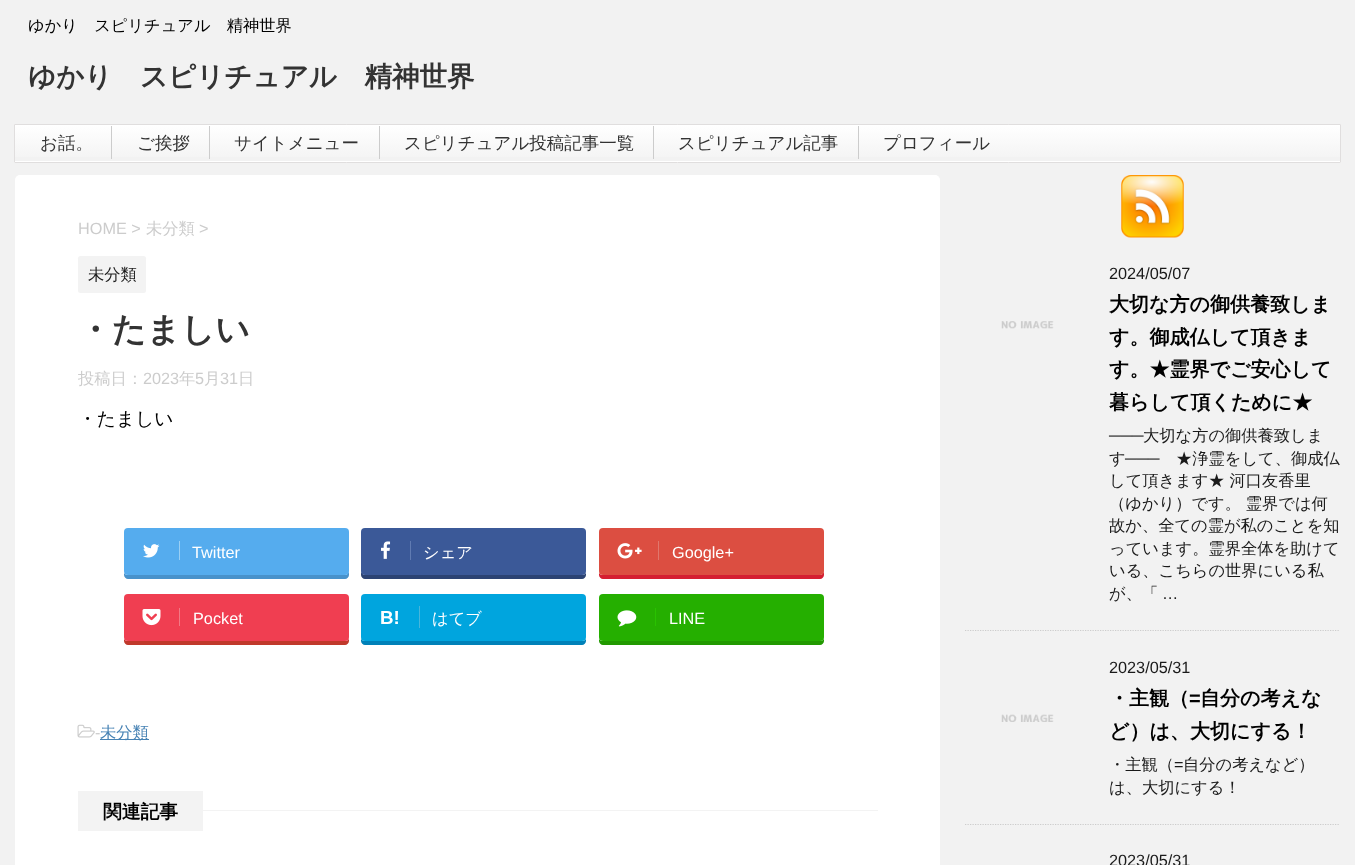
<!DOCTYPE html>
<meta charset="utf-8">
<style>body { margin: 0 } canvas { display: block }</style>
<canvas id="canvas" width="1355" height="865"></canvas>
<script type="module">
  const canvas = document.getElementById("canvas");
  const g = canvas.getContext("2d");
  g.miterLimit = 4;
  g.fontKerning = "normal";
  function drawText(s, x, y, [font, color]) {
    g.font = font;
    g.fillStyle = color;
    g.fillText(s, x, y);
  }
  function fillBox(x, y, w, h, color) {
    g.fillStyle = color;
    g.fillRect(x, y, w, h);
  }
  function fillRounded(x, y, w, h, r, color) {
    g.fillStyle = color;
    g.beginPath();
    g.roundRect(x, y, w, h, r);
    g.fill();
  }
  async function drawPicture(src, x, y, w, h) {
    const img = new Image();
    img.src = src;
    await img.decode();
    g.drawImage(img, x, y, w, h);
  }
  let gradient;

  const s1 = ["500 16.25px WenQuanYi Zen Hei", "#000000"];
  const s2 = ["bold 27.5px WenQuanYi Zen Hei", "#333333"];
  const s3 = ["500 17.5px WenQuanYi Zen Hei", "#333333"];
  const s4 = ["16.25px Liberation Sans", "#CCCCCC"];
  const s5 = ["500 16.25px WenQuanYi Zen Hei", "#CCCCCC"];
  const s6 = ["500 16.25px WenQuanYi Zen Hei", "#1A1A1A"];
  const s7 = ["bold 33.75px WenQuanYi Zen Hei", "#333333"];
  const s8 = ["500 18.75px WenQuanYi Zen Hei", "#000000"];
  const s9 = ["16.25px Liberation Sans", "#FFFFFF"];
  const s10 = ["500 16.25px WenQuanYi Zen Hei", "#FFFFFF"];
  const s11 = ["bold 18.75px Liberation Sans", "#FFFFFF"];
  const s12 = ["500 16.25px WenQuanYi Zen Hei", "#4682B4"];
  const s13 = ["bold 18.75px WenQuanYi Zen Hei", "#000000"];
  const s14 = ["16.25px Liberation Sans", "#1A1A1A"];
  const s15 = ["bold 20px WenQuanYi Zen Hei", "#000000"];
  const s16 = ["bold 20px Liberation Sans", "#000000"];

  fillBox(0, 0, 1355, 865, "#F2F2F2");
  drawText("ゆかり　スピリチュアル　精神世界", 28, 31, s1);
  drawText("ゆかり　スピリチュアル　精神世界", 28, 86, s2);
  gradient = g.createLinearGradient(678, 125, 678, 161);
  gradient.addColorStop(0, "#FFFFFF");
  gradient.addColorStop(1, "#F3F3F3");
  g.fillStyle = gradient;
  g.fillRect(15, 125, 1325, 32);
  gradient = g.createLinearGradient(678, 161, 678, 198);
  gradient.addColorStop(0, "#FFFFFF");
  gradient.addColorStop(1, "#F3F3F3");
  g.fillStyle = gradient;
  g.beginPath();
  g.roundRect(14, 161, 1327, 2, [0, 0, 1, 1]);
  g.fill();
  g.beginPath();
  g.roundRect(14.5, 124.5, 1326, 38, 0.5);
  g.strokeStyle = "#E0DEDE";
  g.stroke();
  drawText("お話。", 40, 149, s3);
  fillBox(111, 126, 1, 33, "#CCCCCC");
  drawText("ご挨拶", 137, 149, s3);
  fillBox(209, 126, 1, 33, "#CCCCCC");
  drawText("サイトメニュー", 234, 149, s3);
  fillBox(379, 126, 1, 33, "#CCCCCC");
  drawText("スピリチュアル投稿記事一覧", 404, 149, s3);
  fillBox(653, 126, 1, 33, "#CCCCCC");
  drawText("スピリチュアル記事", 678, 149, s3);
  fillBox(858, 126, 1, 33, "#CCCCCC");
  drawText("プロフィール", 883, 149, s3);
  fillRounded(15, 175, 925, 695, 5, "#FFFFFF");
  drawText("HOME >", 78, 234, s4);
  drawText("未分類", 146, 234, s5);
  drawText(">", 199, 234, s4);
  fillRounded(78, 256, 68, 37, 2.5, "#F3F3F3");
  drawText("未分類", 88, 280, s6);
  drawText("・たましい", 78, 341, s7);
  drawText("投稿日：", 78, 384, s5);
  drawText("2023", 143, 384, s4);
  drawText("年", 179, 384, s5);
  drawText("5", 195, 384, s4);
  drawText("月", 204, 384, s5);
  drawText("31", 220, 384, s4);
  drawText("日", 238, 384, s5);
  drawText("・たましい", 78, 425, s8);
  g.fillStyle = "#4892CB";
  g.beginPath();
  g.moveTo(124, 573);
  g.lineTo(124, 575);
  g.bezierCurveTo(124, 577, 126, 579, 128, 579);
  g.lineTo(345, 579);
  g.bezierCurveTo(347, 579, 349, 577, 349, 575);
  g.lineTo(349, 534);
  g.lineTo(349, 571);
  g.bezierCurveTo(349, 573, 347, 575, 345, 575);
  g.lineTo(128, 575);
  g.bezierCurveTo(126, 575, 125, 574, 124, 573);
  g.closePath();
  g.fill();
  fillRounded(124, 528, 225, 47, 4, "#55ACEE");
  fillBox(179, 541, 1, 19, "#9ACFF4");
  await drawPicture("pic1.png", 143, 544, 17, 14);
  drawText("Twitter", 192, 558, s9);
  g.fillStyle = "#2C4373";
  g.beginPath();
  g.moveTo(361, 534);
  g.lineTo(361, 575);
  g.bezierCurveTo(361, 577, 363, 579, 365, 579);
  g.lineTo(582, 579);
  g.bezierCurveTo(584, 579, 586, 577, 586, 575);
  g.lineTo(586, 573);
  g.bezierCurveTo(585, 574, 584, 575, 582, 575);
  g.lineTo(365, 575);
  g.bezierCurveTo(363, 575, 361, 573, 361, 571);
  g.closePath();
  g.fill();
  fillRounded(361, 528, 225, 47, 4, "#3B5998");
  fillBox(410, 541, 1, 19, "#607BB2");
  await drawPicture("pic2.png", 381, 541, 10, 18);
  drawText("シェア", 423, 558, s10);
  g.fillStyle = "#D51E31";
  g.beginPath();
  g.moveTo(599, 573);
  g.lineTo(599, 575);
  g.bezierCurveTo(599, 577, 601, 579, 603, 579);
  g.lineTo(820, 579);
  g.bezierCurveTo(822, 579, 824, 577, 824, 575);
  g.lineTo(824, 534);
  g.lineTo(824, 571);
  g.bezierCurveTo(824, 573, 822, 575, 820, 575);
  g.lineTo(602, 575);
  g.bezierCurveTo(601, 575, 600, 574, 599, 573);
  g.closePath();
  g.fill();
  fillRounded(599, 528, 225, 47, 4, "#DC4E41");
  fillBox(658, 541, 1, 19, "#E0776D");
  await drawPicture("pic3.png", 617, 543, 25, 16);
  drawText("Google+", 672, 558, s9);
  g.fillStyle = "#C0392B";
  g.beginPath();
  g.moveTo(124, 639);
  g.lineTo(124, 641);
  g.bezierCurveTo(124, 643, 126, 645, 128, 645);
  g.lineTo(345, 645);
  g.bezierCurveTo(347, 645, 349, 643, 349, 641);
  g.lineTo(349, 601);
  g.lineTo(349, 638);
  g.bezierCurveTo(349, 640, 347, 641, 345, 641);
  g.lineTo(128, 641);
  g.bezierCurveTo(126, 641, 125, 640, 124, 639);
  g.closePath();
  g.fill();
  fillRounded(124, 594, 225, 47, 4, "#F03E51");
  fillBox(179, 608, 1, 18, "#F27985");
  await drawPicture("pic4.png", 142, 609, 19, 17);
  drawText("Pocket", 193, 624, s9);
  g.fillStyle = "#0081B8";
  g.beginPath();
  g.moveTo(361, 601);
  g.lineTo(361, 641);
  g.bezierCurveTo(361, 643, 363, 645, 365, 645);
  g.lineTo(582, 645);
  g.bezierCurveTo(584, 645, 586, 643, 586, 641);
  g.lineTo(586, 639);
  g.bezierCurveTo(585, 640, 584, 641, 582, 641);
  g.lineTo(365, 641);
  g.bezierCurveTo(363, 641, 361, 640, 361, 638);
  g.closePath();
  g.fill();
  fillRounded(361, 594, 225, 47, 4, "#00A5DE");
  drawText("B!", 380, 624, s11);
  fillBox(419, 606, 1, 22, "#48B6DB");
  drawText("はてブ", 432, 624, s10);
  g.fillStyle = "#219900";
  g.beginPath();
  g.moveTo(599, 639);
  g.lineTo(599, 641);
  g.bezierCurveTo(599, 643, 601, 645, 603, 645);
  g.lineTo(820, 645);
  g.bezierCurveTo(822, 645, 824, 643, 824, 641);
  g.lineTo(824, 601);
  g.lineTo(824, 638);
  g.bezierCurveTo(824, 640, 822, 641, 820, 641);
  g.lineTo(602, 641);
  g.bezierCurveTo(601, 641, 600, 640, 599, 639);
  g.closePath();
  g.fill();
  fillRounded(599, 594, 225, 47, 4, "#25AF00");
  fillBox(655, 608, 1, 18, "#29C200");
  await drawPicture("pic5.png", 617, 610, 20, 17);
  drawText("LINE", 669, 624, s9);
  await drawPicture("pic6.png", 77, 724, 18, 14);
  drawText("-", 95, 738, s4);
  fillBox(100, 739, 49, 1, "#4682B4");
  drawText("未分類", 100, 738, s12);
  fillBox(203, 810, 675, 1, "#F3F3F3");
  fillBox(78, 791, 125, 40, "#F3F3F3");
  drawText("関連記事", 103, 818, s13);
  await drawPicture("pic7.png", 1121, 175, 63, 63);
  g.beginPath();
  g.moveTo(965, 630.5);
  g.lineTo(1340, 630.5);
  g.strokeStyle = "#CCCCCC";
  g.lineWidth = 1.2;
  g.setLineDash([1.25, 1.25]);
  g.stroke();
  await drawPicture("pic8.png", 1001, 321, 53, 8);
  drawText("2024/05/07", 1109, 279, s14);
  drawText("大切な方の御供養致しま", 1109, 311, s15);
  drawText("す。御成仏して頂きま", 1109, 344, s15);
  drawText("す。★霊界でご安心して", 1109, 376, s15);
  drawText("暮らして頂くために★", 1109, 409, s15);
  drawText("───", 1109, 441, s14);
  drawText("大切な方の御供養致しま", 1143, 441, s6);
  drawText("す", 1109, 464, s6);
  drawText("───", 1125, 464, s14);
  drawText("★浄霊をして、御成仏", 1176, 464, s6);
  drawText("して頂きます★ 河口友香里", 1109, 486, s6);
  drawText("（ゆかり）です。 霊界では何", 1109, 509, s6);
  drawText("故か、全ての霊が私のことを知", 1109, 531, s6);
  drawText("っています。霊界全体を助けて", 1109, 554, s6);
  drawText("いる、こちらの世界にいる私", 1109, 576, s6);
  drawText("が、「", 1109, 599, s6);
  drawText("…", 1162, 599, s14);
  g.beginPath();
  g.moveTo(965, 824.5);
  g.lineTo(1340, 824.5);
  g.stroke();
  await drawPicture("pic9.png", 1001, 714, 53, 8);
  drawText("2023/05/31", 1109, 673, s14);
  drawText("・主観（", 1109, 705, s15);
  drawText("=", 1189, 705, s16);
  drawText("自分の考えな", 1200, 705, s15);
  drawText("ど）は、大切にする！", 1109, 738, s15);
  drawText("・主観（", 1109, 770, s6);
  drawText("=", 1174, 770, s14);
  drawText("自分の考えなど）", 1183, 770, s6);
  drawText("は、大切にする！", 1109, 793, s6);
  drawText("2023/05/31", 1109, 866, s14);
</script>
